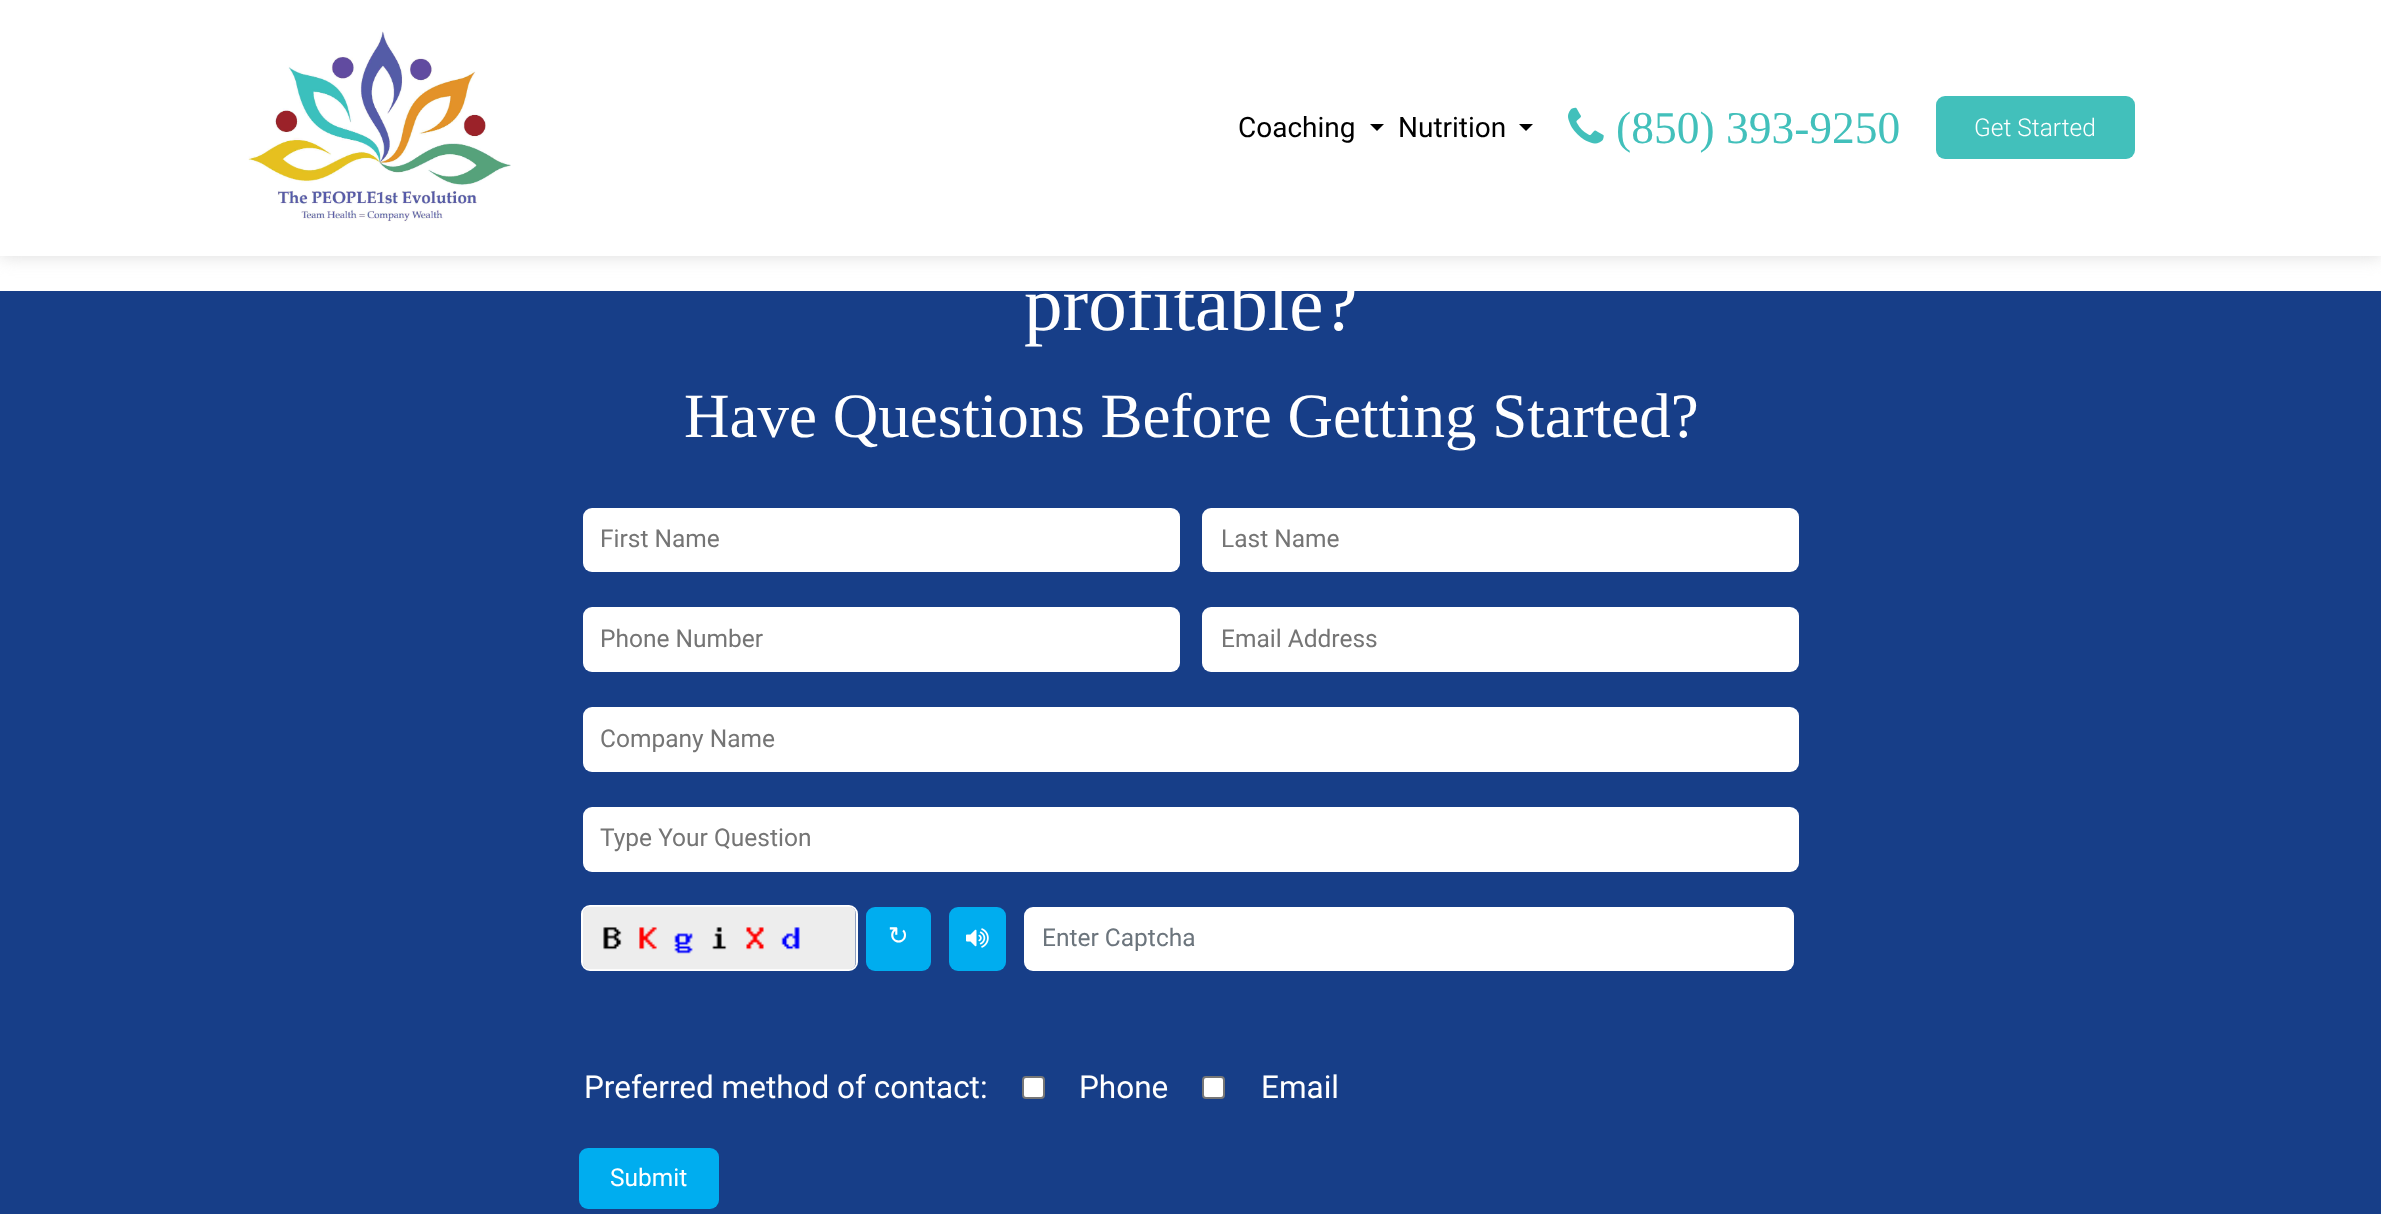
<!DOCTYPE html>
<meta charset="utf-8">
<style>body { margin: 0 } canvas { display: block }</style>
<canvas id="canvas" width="2381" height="1214"></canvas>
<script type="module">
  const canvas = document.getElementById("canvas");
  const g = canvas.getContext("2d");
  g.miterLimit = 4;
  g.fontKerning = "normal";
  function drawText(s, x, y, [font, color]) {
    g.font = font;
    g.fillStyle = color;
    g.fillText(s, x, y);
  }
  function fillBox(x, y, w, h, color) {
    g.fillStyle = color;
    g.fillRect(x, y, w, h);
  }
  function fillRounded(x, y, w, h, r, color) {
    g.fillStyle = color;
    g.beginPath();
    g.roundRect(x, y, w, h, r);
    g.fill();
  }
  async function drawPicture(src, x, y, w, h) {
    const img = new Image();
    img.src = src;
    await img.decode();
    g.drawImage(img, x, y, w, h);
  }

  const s1 = ["28px Roboto", "#000000"];
  const s2 = ["45.5px Liberation Serif", "#42C0BB"];
  const s3 = ["300 24.5px Roboto", "#FFFFFF"];
  const s4 = ["77px Liberation Serif", "#FFFFFF"];
  const s5 = ["63px Liberation Serif", "#FFFFFF"];
  const s6 = ["24.5px Roboto", "#757575"];
  const s7 = ["24.5px DejaVu Sans", "#FFFFFF"];
  const s8 = ["24.5px Roboto", "#6C757D"];
  const s9 = ["31.5px Roboto", "#FFFFFF"];
  const s10 = ["24.5px Roboto", "#FFFFFF"];

  fillBox(0, 0, 2381, 1214, "#FFFFFF");
  g.fillStyle = "#DBDBDB";
  g.filter = "blur(9px)";
  g.beginPath();
  g.rect(0, 0, 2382, 256);
  g.fill();
  g.filter = "none";
  fillBox(0, 0, 2381, 256, "#FFFFFF");
  await drawPicture("pic1.png", 248, 31, 263, 192);
  drawText("Coaching", 1238, 137, s1);
  g.beginPath();
  g.moveTo(1370, 124);
  g.lineTo(1384, 124);
  g.lineTo(1377, 131);
  g.closePath();
  g.fill();
  drawText("Nutrition", 1398, 137, s1);
  g.beginPath();
  g.moveTo(1519, 124);
  g.lineTo(1533, 124);
  g.lineTo(1526, 131);
  g.closePath();
  g.fill();
  await drawPicture("pic2.png", 1568, 107, 36, 37);
  drawText("(850) 393-9250", 1616, 143, s2);
  fillRounded(1936, 96, 199, 63, 9, "#42C0BB");
  drawText("Get Started", 1974, 136, s3);
  fillBox(0, 291, 2381, 923, "#173E88");
  drawText("profitable?", 1024, 330, s4);
  drawText("Have Questions Before Getting Started?", 684, 437, s5);
  fillRounded(583, 508, 597, 64, 9, "#FFFFFF");
  drawText("First Name", 600, 547, s6);
  fillRounded(1202, 508, 597, 64, 9, "#FFFFFF");
  drawText("Last Name", 1221, 547, s6);
  fillRounded(583, 607, 597, 65, 9, "#FFFFFF");
  drawText("Phone Number", 600, 647, s6);
  fillRounded(1202, 607, 597, 65, 9, "#FFFFFF");
  drawText("Email Address", 1221, 647, s6);
  fillRounded(583, 707, 1216, 65, 9, "#FFFFFF");
  drawText("Company Name", 600, 747, s6);
  fillRounded(583, 807, 1216, 65, 9, "#FFFFFF");
  drawText("Type Your Question", 600, 846, s6);
  g.beginPath();
  g.roundRect(582, 906, 275, 64, 8);
  g.strokeStyle = "#FFFFFF";
  g.lineWidth = 2;
  g.stroke();
  await drawPicture("pic3.png", 583, 906, 273, 64);
  fillRounded(866, 907, 65, 64, 9, "#00ADEF");
  drawText("↻", 888, 944, s7);
  fillRounded(949, 907, 57, 64, 9, "#00ADEF");
  await drawPicture("pic4.png", 966, 928, 23, 20);
  fillRounded(1024, 907, 770, 64, 9, "#FFFFFF");
  drawText("Enter Captcha", 1042, 946, s8);
  drawText("Preferred method of contact:", 584, 1098, s9);
  g.beginPath();
  g.roundRect(1023, 1077, 21, 21, 3);
  g.fill();
  g.strokeStyle = "#767676";
  g.stroke();
  drawText("Phone", 1079, 1098, s9);
  g.beginPath();
  g.roundRect(1203, 1077, 21, 21, 3);
  g.fill();
  g.stroke();
  drawText("Email", 1261, 1098, s9);
  fillRounded(579, 1148, 140, 61, 9, "#00ADEF");
  drawText("Submit", 610, 1186, s10);
</script>
